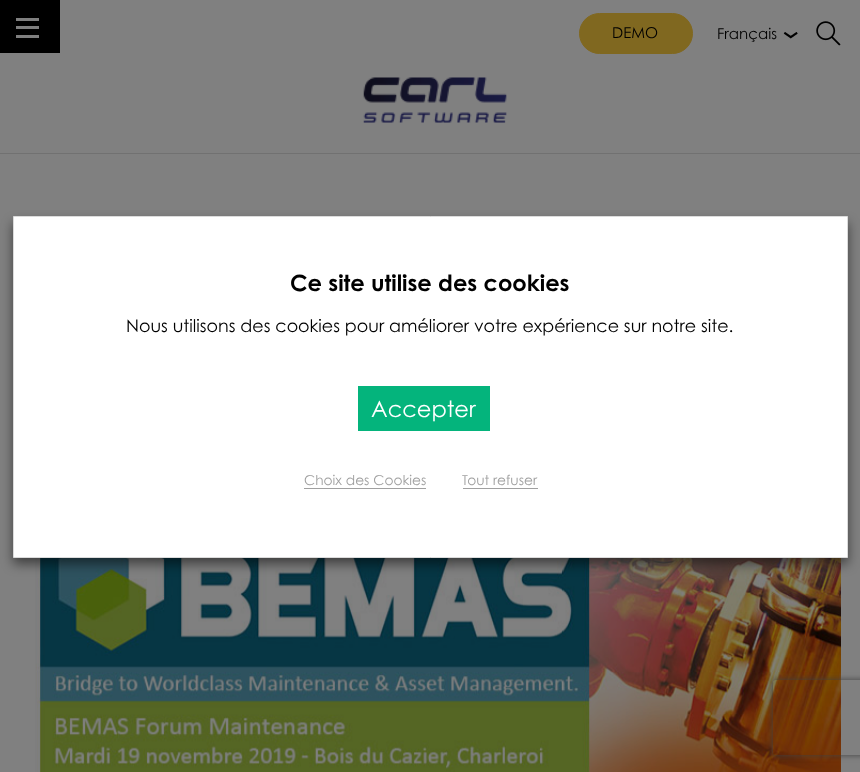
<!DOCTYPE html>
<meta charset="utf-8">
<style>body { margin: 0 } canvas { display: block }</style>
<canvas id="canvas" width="860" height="772"></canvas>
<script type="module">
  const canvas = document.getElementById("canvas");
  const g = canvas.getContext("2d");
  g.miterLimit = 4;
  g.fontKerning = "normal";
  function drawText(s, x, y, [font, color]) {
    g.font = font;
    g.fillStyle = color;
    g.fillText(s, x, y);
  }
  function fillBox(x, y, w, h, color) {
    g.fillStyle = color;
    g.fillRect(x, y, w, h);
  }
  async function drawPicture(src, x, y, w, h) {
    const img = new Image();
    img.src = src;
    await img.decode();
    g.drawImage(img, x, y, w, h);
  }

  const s1 = ["15px Century Gothic", "#000000"];
  const s2 = ["bold 22.5px Century Gothic", "#000000"];
  const s3 = ["17.5px Century Gothic", "#000000"];
  const s4 = ["22.5px Century Gothic", "#FFFFFF"];
  const s5 = ["13.75px Century Gothic", "#A0A0A0"];

  fillBox(0, 0, 860, 772, "#808080");
  fillBox(0, 0, 60, 53, "#000000");
  fillBox(16, 35, 23, 3, "#7F7F7F");
  fillBox(16, 26, 23, 3, "#7F7F7F");
  fillBox(16, 18, 23, 3, "#7F7F7F");
  g.fillStyle = "#806820";
  g.beginPath();
  g.roundRect(579.5, 13.5, 113, 40, 20);
  g.fill();
  g.strokeStyle = "#806820";
  g.stroke();
  drawText("DEMO", 612, 38, s1);
  drawText("Français", 717, 39, s1);
  await drawPicture("pic1.png", 783, 32, 15, 7);
  await drawPicture("pic2.png", 816, 21, 25, 25);
  await drawPicture("pic3.png", 363, 77, 144, 46);
  fillBox(0, 153, 860, 1, "#717171");
  await drawPicture("pic4.png", 35, 558, 806, 214);
  g.fillStyle = "rgba(0, 0, 0, 0.5)";
  g.filter = "blur(6px)";
  g.beginPath();
  g.rect(13, 223, 835, 341);
  g.fill();
  g.filter = "none";
  g.fillStyle = "#FFFFFF";
  g.beginPath();
  g.rect(13.5, 216.5, 834, 341);
  g.fill();
  g.strokeStyle = "#DBDBDB";
  g.stroke();
  drawText("Ce site utilise des cookies", 290, 291, s2);
  drawText("Nous utilisons des cookies pour améliorer votre expérience sur notre site.", 126, 332, s3);
  fillBox(358, 386, 132, 45, "#04B47C");
  drawText("Accepter", 371, 417, s4);
  drawText("Choix des Cookies", 304, 485, s5);
  fillBox(304, 488, 122, 1, "#A0A0A0");
  drawText("Tout refuser", 462, 485, s5);
  fillBox(463, 488, 75, 1, "#A0A0A0");
  g.save();
  g.beginPath();
  g.moveTo(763, 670);
  g.lineTo(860, 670);
  g.lineTo(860, 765);
  g.lineTo(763, 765);
  g.closePath();
  g.moveTo(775.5, 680);
  g.lineTo(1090.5, 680);
  g.bezierCurveTo(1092, 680, 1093, 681, 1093, 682.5);
  g.lineTo(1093, 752.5);
  g.bezierCurveTo(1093, 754, 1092, 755, 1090.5, 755);
  g.lineTo(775.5, 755);
  g.bezierCurveTo(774, 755, 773, 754, 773, 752.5);
  g.lineTo(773, 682.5);
  g.bezierCurveTo(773, 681, 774, 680, 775.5, 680);
  g.closePath();
  g.clip("evenodd");
  g.fillStyle = "#404040";
  g.filter = "blur(3px)";
  g.beginPath();
  g.roundRect(773, 680, 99, 75, 2.5);
  g.fill();
  g.filter = "none";
  g.restore();
</script>
